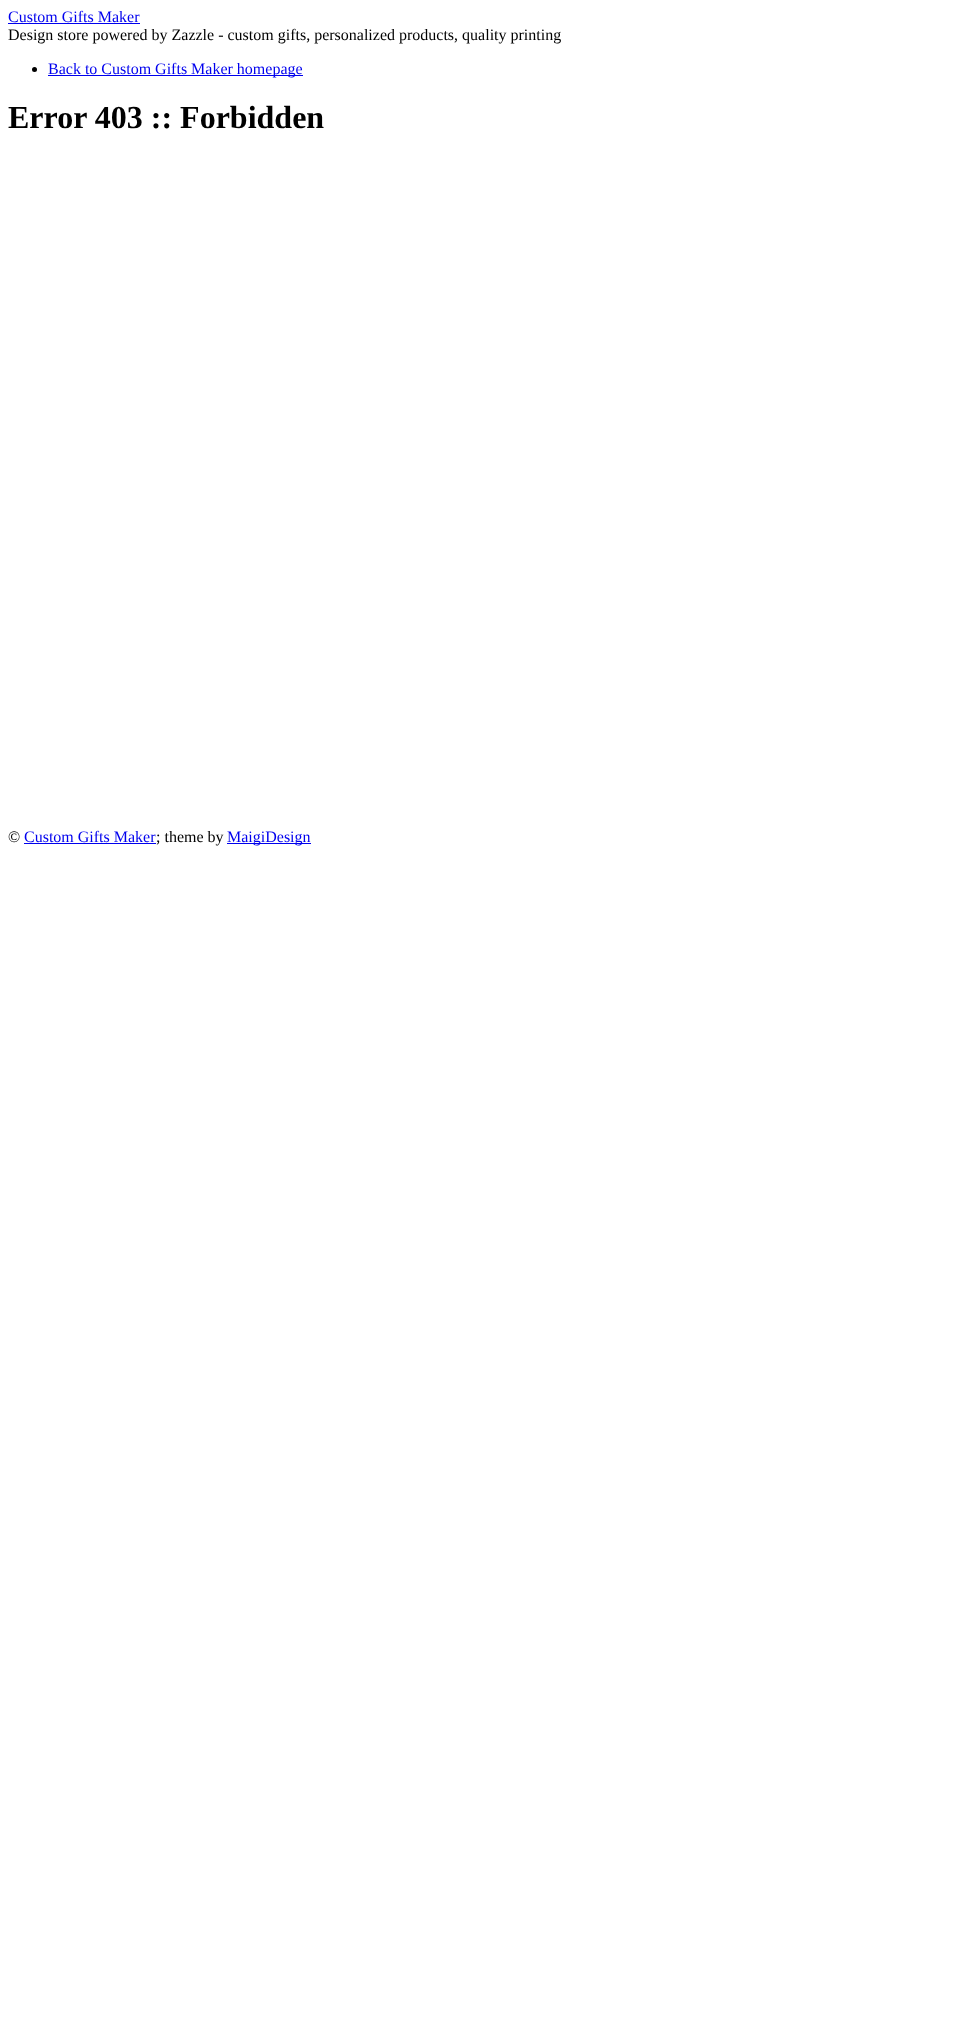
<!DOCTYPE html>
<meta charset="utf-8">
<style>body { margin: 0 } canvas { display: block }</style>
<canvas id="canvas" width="956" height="2036"></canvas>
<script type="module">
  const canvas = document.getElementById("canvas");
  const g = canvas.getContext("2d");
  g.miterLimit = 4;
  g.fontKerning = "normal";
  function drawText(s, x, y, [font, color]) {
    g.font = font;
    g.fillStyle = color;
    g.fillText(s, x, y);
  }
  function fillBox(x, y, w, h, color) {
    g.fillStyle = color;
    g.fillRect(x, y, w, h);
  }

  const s1 = ["16px Liberation Serif", "#0000EE"];
  const s2 = ["16px Liberation Serif", "#000000"];
  const s3 = ["bold 32px Liberation Serif", "#000000"];

  fillBox(0, 0, 956, 2036, "#FFFFFF");
  drawText("Custom Gifts Maker", 8, 22, s1);
  fillBox(8, 23, 132, 1, "#0000EE");
  drawText("Design store powered by Zazzle - custom gifts, personalized products, quality printing", 8, 40, s2);
  g.beginPath();
  g.arc(34.5, 69.5, 2.5, 0, Math.PI * 2);
  g.fill();
  fillBox(48, 75, 255, 1, "#0000EE");
  drawText("Back to Custom Gifts Maker homepage", 48, 74, s1);
  drawText("Error 403 :: Forbidden", 8, 128, s3);
  drawText("©", 8, 842, s2);
  drawText("Custom Gifts Maker", 24, 842, s1);
  fillBox(24, 843, 132, 1, "#0000EE");
  drawText("; theme by", 156, 842, s2);
  fillBox(227, 843, 84, 1, "#0000EE");
  drawText("MaigiDesign", 227, 842, s1);
</script>
